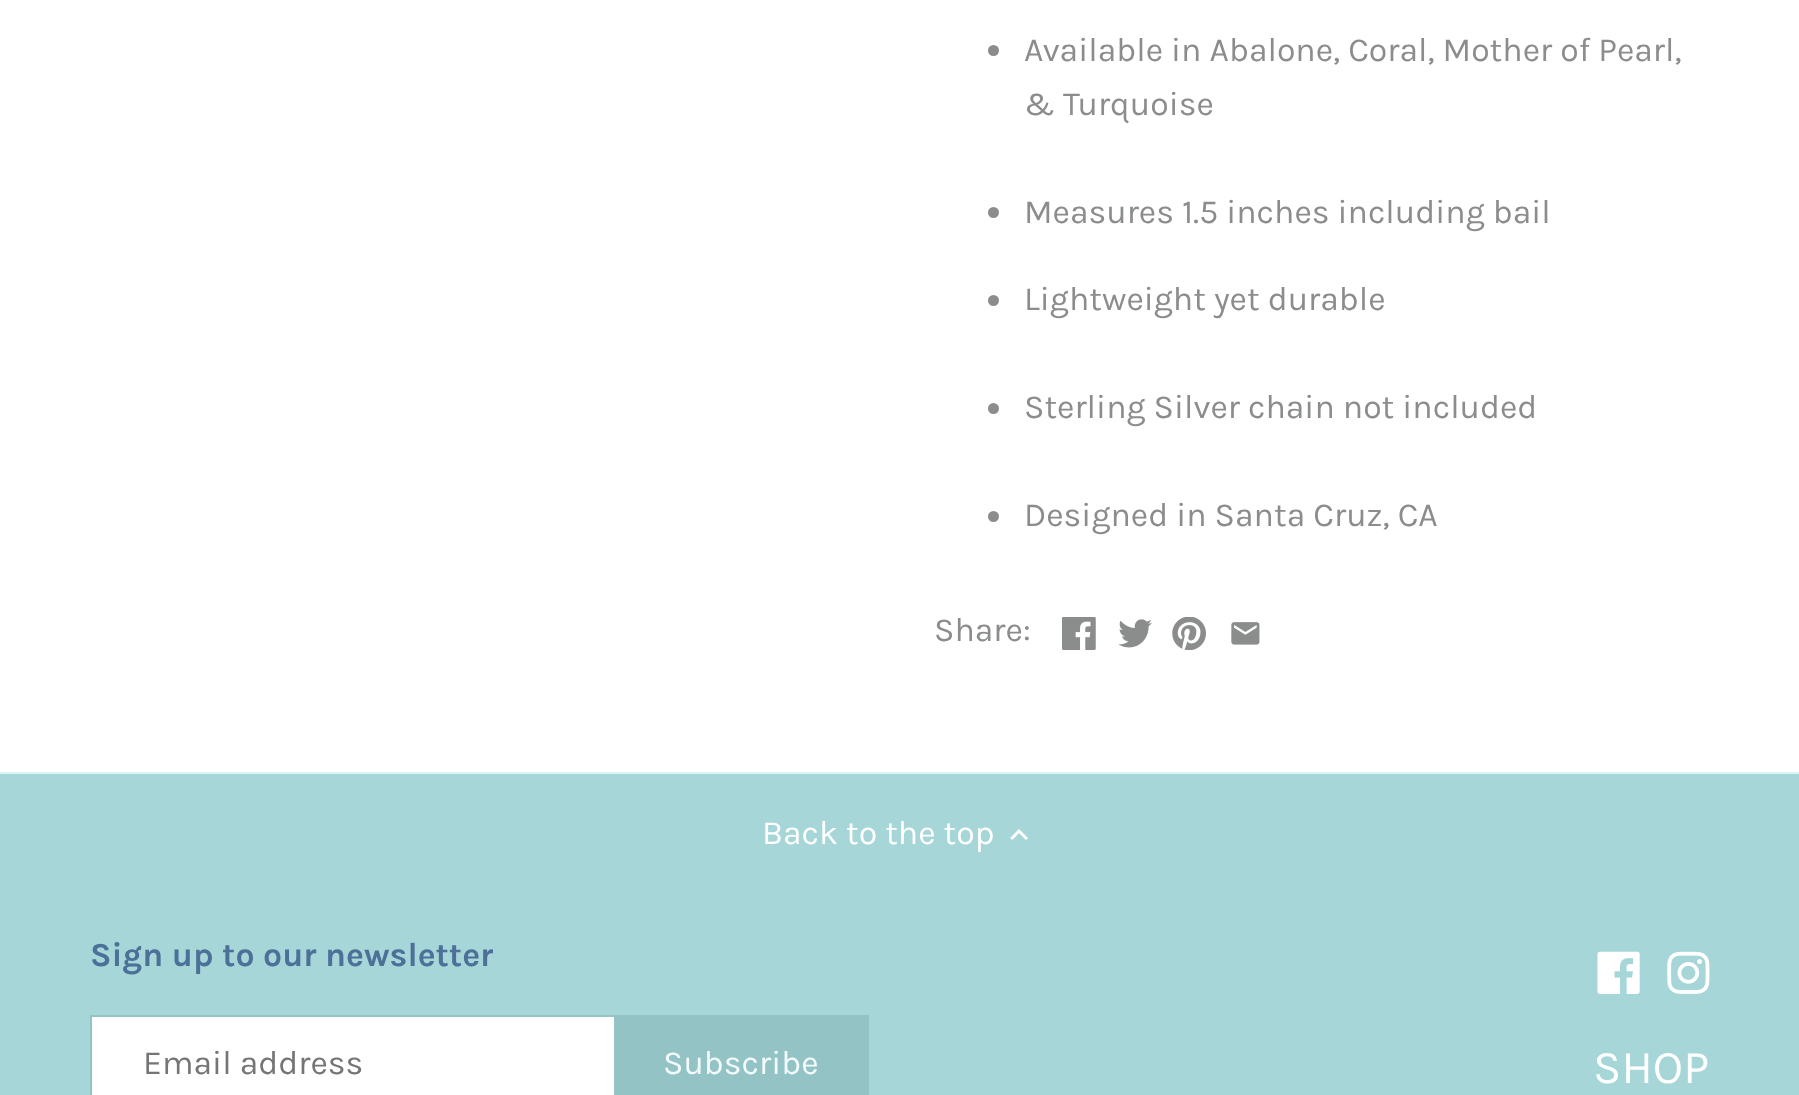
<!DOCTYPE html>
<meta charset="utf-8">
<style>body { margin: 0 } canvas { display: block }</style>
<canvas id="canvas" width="1799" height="1095"></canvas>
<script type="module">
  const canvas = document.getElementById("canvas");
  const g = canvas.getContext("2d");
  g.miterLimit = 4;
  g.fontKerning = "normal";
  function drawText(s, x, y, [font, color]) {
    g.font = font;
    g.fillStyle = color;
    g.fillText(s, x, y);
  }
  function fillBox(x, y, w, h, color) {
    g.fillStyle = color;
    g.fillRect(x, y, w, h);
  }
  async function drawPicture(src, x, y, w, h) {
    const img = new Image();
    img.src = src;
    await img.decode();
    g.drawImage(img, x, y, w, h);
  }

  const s1 = ["33.75px Karla", "#8B8C8C"];
  const s2 = ["33.75px Karla", "#FFFFFF"];
  const s3 = ["bold 33.75px Karla", "#4D7099"];
  const s4 = ["33.75px Karla", "#757575"];
  const s5 = ["33.75px Karla", "#F4FBFC"];
  const s6 = ["47px Karla", "#FFFFFF"];

  fillBox(0, 0, 1799, 1095, "#A6D6D7");
  fillBox(0, 0, 1799, 772, "#FFFFFF");
  g.fillStyle = "#8B8C8C";
  g.beginPath();
  g.arc(993.5, 50.5, 5.5, 0, Math.PI * 2);
  g.fill();
  drawText("Available in Abalone, Coral, Mother of Pearl,", 1024, 61, s1);
  drawText("& Turquoise", 1024, 115, s1);
  g.beginPath();
  g.arc(993.5, 212.5, 5.5, 0, Math.PI * 2);
  g.fill();
  drawText("Measures 1.5 inches including bail", 1024, 223, s1);
  g.beginPath();
  g.arc(993.5, 300.5, 5.5, 0, Math.PI * 2);
  g.fill();
  drawText("Lightweight yet durable", 1024, 310, s1);
  g.beginPath();
  g.arc(993.5, 408.5, 5.5, 0, Math.PI * 2);
  g.fill();
  drawText("Sterling Silver chain not included", 1024, 418, s1);
  g.beginPath();
  g.arc(993.5, 516.5, 5.5, 0, Math.PI * 2);
  g.fill();
  drawText("Designed in Santa Cruz, CA", 1024, 526, s1);
  drawText("Share:", 934, 641, s1);
  await drawPicture("pic1.png", 1062, 617, 34, 33);
  await drawPicture("pic2.png", 1118, 619, 34, 29);
  await drawPicture("pic3.png", 1172, 617, 34, 33);
  await drawPicture("pic4.png", 1231, 622, 29, 23);
  fillBox(0, 772, 1799, 2, "#D8F4F5");
  drawText("Back to the top", 762, 844, s2);
  g.beginPath();
  g.moveTo(1012.5, 840);
  g.lineTo(1019, 833);
  g.lineTo(1026, 840);
  g.lineTo(1028, 838);
  g.lineTo(1019, 829);
  g.lineTo(1010, 838);
  g.closePath();
  g.fill();
  drawText("Sign up to our newsletter", 90, 966, s3);
  fillBox(92, 1017, 522, 78, "#FFFFFF");
  g.strokeStyle = "#93C3C4";
  g.lineWidth = 2;
  g.strokeRect(91, 1016, 774, 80);
  drawText("Email address", 143, 1074, s4);
  fillBox(614, 1015, 255, 80, "#93C3C4");
  drawText("Subscribe", 663, 1074, s5);
  await drawPicture("pic5.png", 1597, 951, 43, 43);
  await drawPicture("pic6.png", 1667, 951, 43, 43);
  drawText("SHOP", 1593, 1083, s6);
</script>
